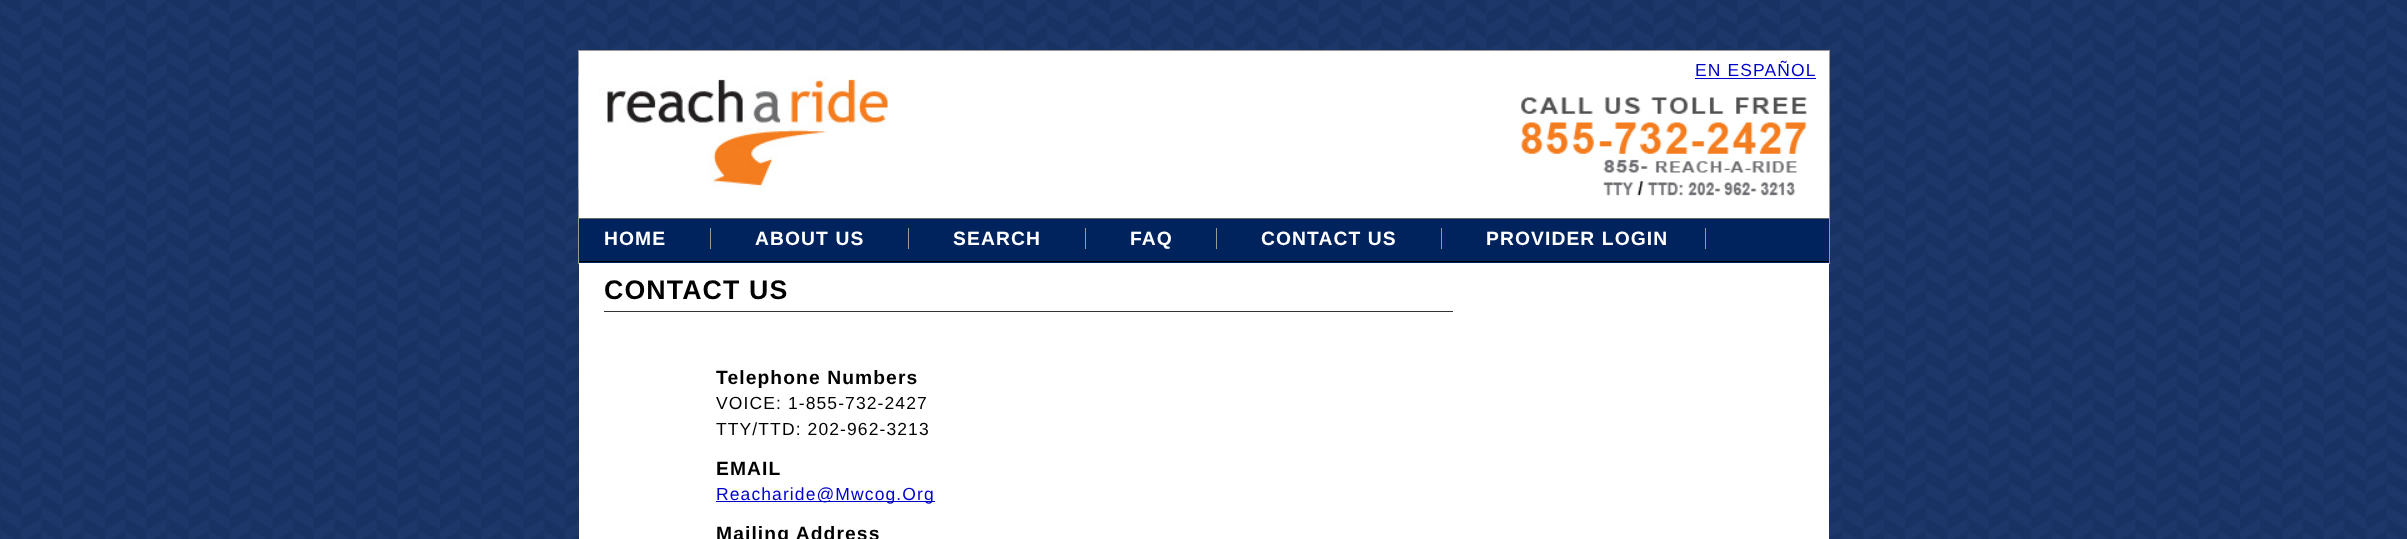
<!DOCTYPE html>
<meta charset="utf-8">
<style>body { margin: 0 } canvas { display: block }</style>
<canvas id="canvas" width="2407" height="539"></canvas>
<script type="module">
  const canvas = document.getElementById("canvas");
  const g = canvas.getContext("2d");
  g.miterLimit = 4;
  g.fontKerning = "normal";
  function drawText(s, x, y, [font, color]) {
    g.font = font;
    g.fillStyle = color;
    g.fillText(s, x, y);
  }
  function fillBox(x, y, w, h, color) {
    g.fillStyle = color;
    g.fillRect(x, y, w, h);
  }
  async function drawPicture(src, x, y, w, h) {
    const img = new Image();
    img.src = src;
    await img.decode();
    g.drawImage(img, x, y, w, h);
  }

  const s1 = ["17.5px Liberation Sans", "#0000CC"];
  const s2 = ["bold 19.25px Liberation Sans", "#FFFFFF"];
  const s3 = ["bold 26.75px Liberation Sans", "#000000"];
  const s4 = ["bold 19.25px Liberation Sans", "#000000"];
  const s5 = ["17.5px Liberation Sans", "#000000"];

  fillBox(0, 0, 2407, 539, "#FFFFFF");
  await drawPicture("pic1.png", 0, 0, 2407, 539);
  fillBox(579, 51, 1250, 167, "#FFFFFF");
  g.strokeStyle = "#999999";
  g.strokeRect(578.5, 50.5, 1251, 213);
  g.letterSpacing = "1.1px";
  drawText("EN ESPAÑOL", 1695, 76, s1);
  fillBox(1695, 78, 121, 1, "#0000CC");
  await drawPicture("pic2.png", 1521, 97, 286, 99);
  await drawPicture("pic3.png", 578, 76, 311, 113);
  fillBox(579, 219, 1250, 44, "#00235D");
  fillBox(579, 218, 1250, 1, "#666666");
  fillBox(579, 261, 1250, 1, "#000000");
  drawText("HOME", 604, 245, s2);
  fillBox(710, 228, 1, 21, "#999999");
  drawText("ABOUT US", 755, 245, s2);
  fillBox(908, 228, 1, 21, "#999999");
  drawText("SEARCH", 953, 245, s2);
  fillBox(1085, 228, 1, 21, "#999999");
  drawText("FAQ", 1130, 245, s2);
  fillBox(1216, 228, 1, 21, "#999999");
  drawText("CONTACT US", 1261, 245, s2);
  fillBox(1441, 228, 1, 21, "#999999");
  drawText("PROVIDER LOGIN", 1486, 245, s2);
  fillBox(1705, 228, 1, 21, "#999999");
  fillBox(579, 263, 1250, 276, "#FFFFFF");
  fillBox(604, 311, 849, 1, "#333333");
  drawText("CONTACT US", 604, 299, s3);
  drawText("Telephone Numbers", 716, 384, s4);
  drawText("VOICE: 1-855-732-2427", 716, 409, s5);
  drawText("TTY/TTD: 202-962-3213", 716, 435, s5);
  drawText("EMAIL", 716, 475, s4);
  fillBox(716, 501, 219, 1, "#0000CC");
  drawText("Reacharide@Mwcog.Org", 716, 500, s1);
  drawText("Mailing Address", 716, 540, s4);
</script>
